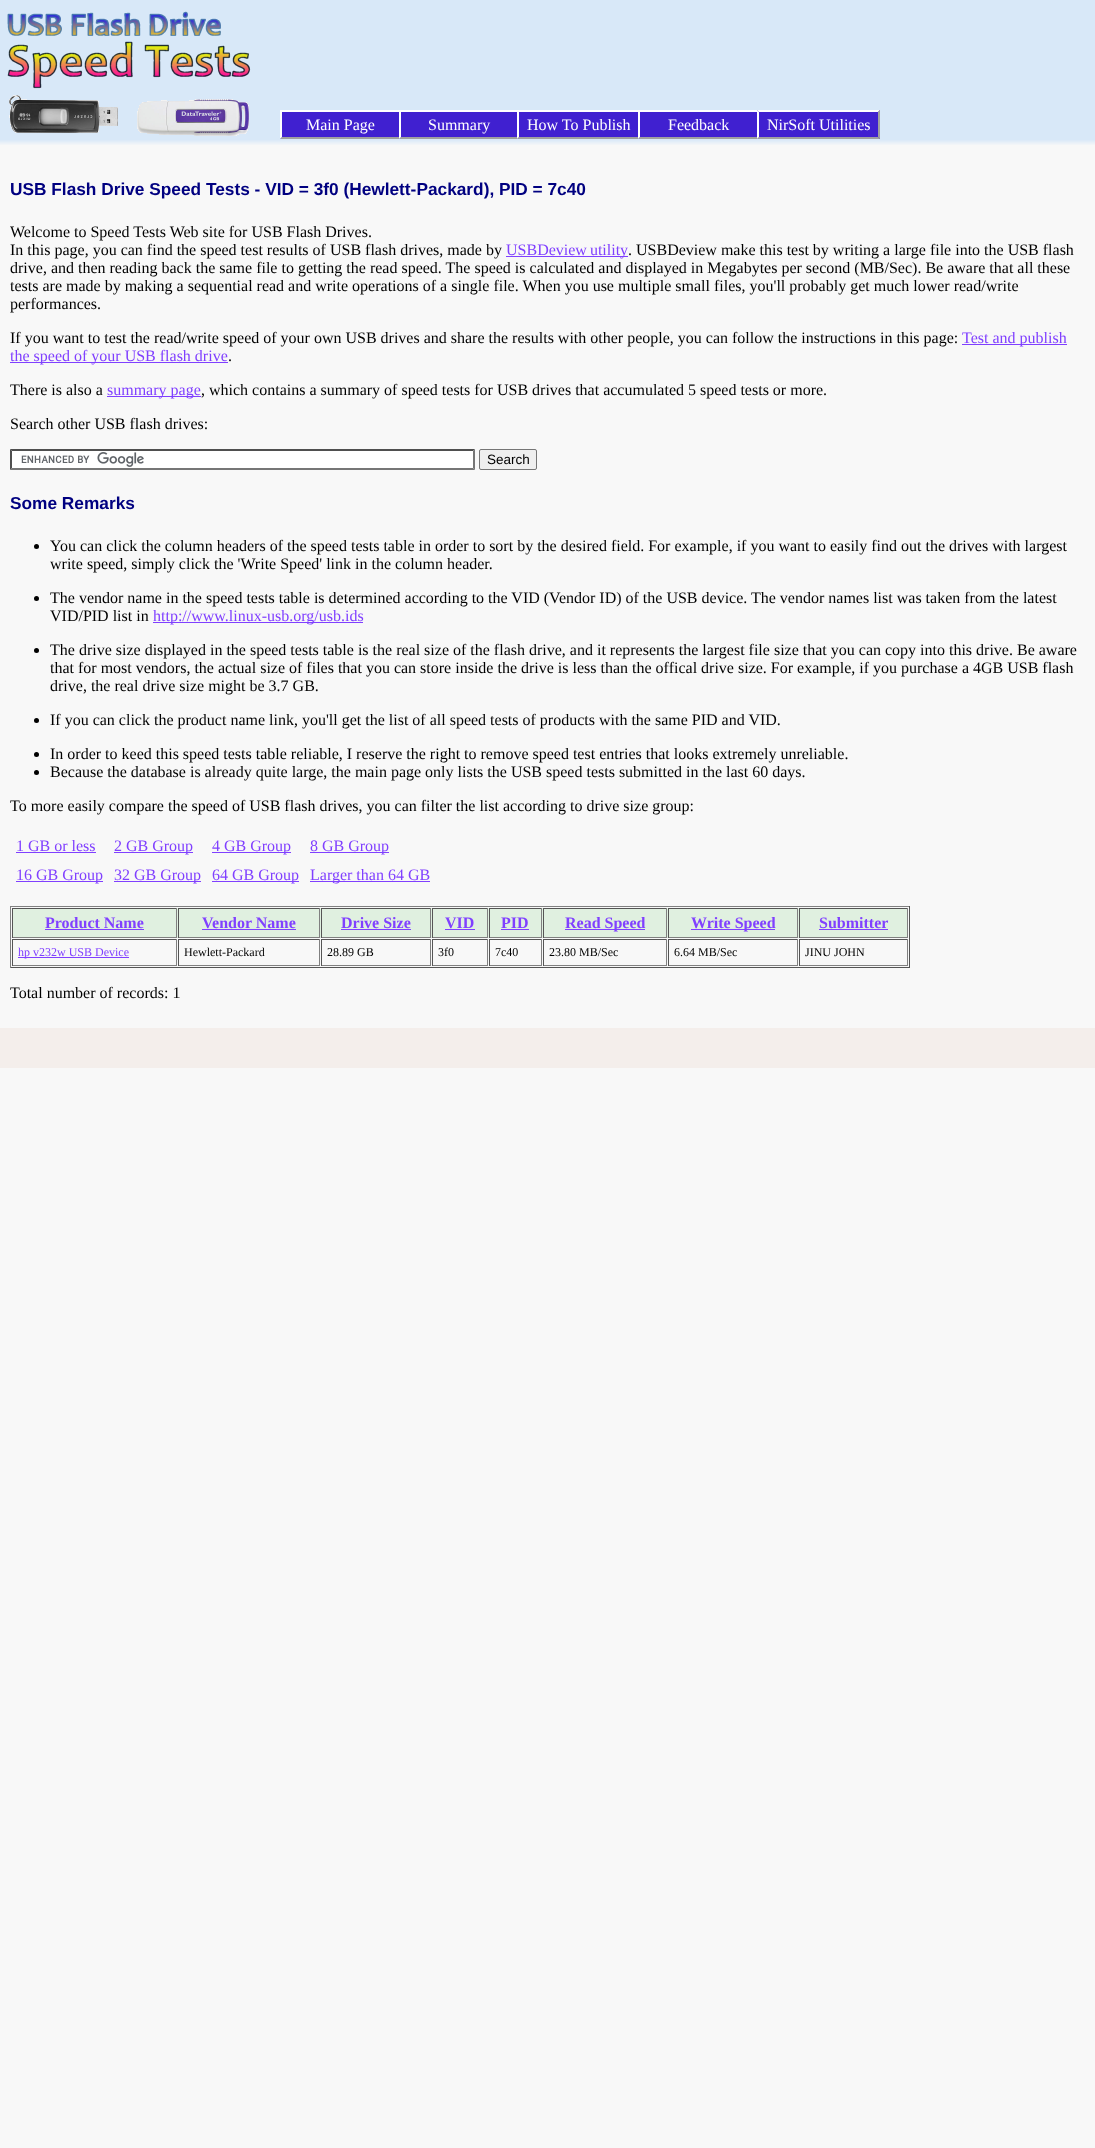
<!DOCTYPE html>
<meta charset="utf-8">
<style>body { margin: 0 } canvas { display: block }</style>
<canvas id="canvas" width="1095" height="2148"></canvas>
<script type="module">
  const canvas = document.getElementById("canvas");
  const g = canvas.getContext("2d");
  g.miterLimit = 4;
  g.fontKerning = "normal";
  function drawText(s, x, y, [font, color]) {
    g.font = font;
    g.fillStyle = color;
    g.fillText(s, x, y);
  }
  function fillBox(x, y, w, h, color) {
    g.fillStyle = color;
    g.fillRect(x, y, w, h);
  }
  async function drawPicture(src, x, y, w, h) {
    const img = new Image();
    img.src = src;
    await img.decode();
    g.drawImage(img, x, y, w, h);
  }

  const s1 = ["16px Liberation Serif", "#FFFFFF"];
  const s2 = ["bold 17.3px Liberation Sans", "#000080"];
  const s3 = ["16px Liberation Serif", "#000000"];
  const s4 = ["16px Liberation Serif", "#8040FF"];
  const s5 = ["13.5px Liberation Sans", "#000000"];
  const s6 = ["bold 16px Liberation Serif", "#8040FF"];
  const s7 = ["12px Liberation Serif", "#8040FF"];
  const s8 = ["12px Liberation Serif", "#000000"];

  fillBox(0, 0, 1095, 2148, "#F8F8F8");
  fillBox(0, 0, 1095, 140, "#D8E8F8");
  await drawPicture("pic1.png", 7, 11, 244, 125);
  fillBox(280, 110, 600, 29, "#4020D0");
  fillBox(280, 110, 477, 2, "#FFFFFF");
  g.fillStyle = "#A0A0A0";
  g.beginPath();
  g.moveTo(399, 139);
  g.lineTo(280, 139);
  g.lineTo(282, 137);
  g.lineTo(399, 137);
  g.closePath();
  g.fill();
  g.fillStyle = "#FFFFFF";
  g.beginPath();
  g.moveTo(280, 139);
  g.lineTo(280, 110);
  g.lineTo(282, 112);
  g.lineTo(282, 137);
  g.closePath();
  g.fill();
  drawText("Main Page", 306, 130, s1);
  g.fillStyle = "#A0A0A0";
  g.beginPath();
  g.moveTo(517, 139);
  g.lineTo(399, 139);
  g.lineTo(401, 137);
  g.lineTo(517, 137);
  g.closePath();
  g.fill();
  g.fillStyle = "#FFFFFF";
  g.beginPath();
  g.moveTo(399, 139);
  g.lineTo(399, 110);
  g.lineTo(401, 112);
  g.lineTo(401, 137);
  g.closePath();
  g.fill();
  drawText("Summary", 428, 130, s1);
  g.fillStyle = "#A0A0A0";
  g.beginPath();
  g.moveTo(638, 139);
  g.lineTo(517, 139);
  g.lineTo(519, 137);
  g.lineTo(638, 137);
  g.closePath();
  g.fill();
  g.fillStyle = "#FFFFFF";
  g.beginPath();
  g.moveTo(517, 139);
  g.lineTo(517, 110);
  g.lineTo(519, 112);
  g.lineTo(519, 137);
  g.closePath();
  g.fill();
  drawText("How To Publish", 527, 130, s1);
  g.fillStyle = "#A0A0A0";
  g.beginPath();
  g.moveTo(757, 139);
  g.lineTo(638, 139);
  g.lineTo(640, 137);
  g.lineTo(757, 137);
  g.closePath();
  g.fill();
  g.fillStyle = "#FFFFFF";
  g.beginPath();
  g.moveTo(638, 139);
  g.lineTo(638, 110);
  g.lineTo(640, 112);
  g.lineTo(640, 137);
  g.closePath();
  g.fill();
  drawText("Feedback", 668, 130, s1);
  g.beginPath();
  g.moveTo(757, 110);
  g.lineTo(880, 110);
  g.lineTo(878, 112);
  g.lineTo(759, 112);
  g.closePath();
  g.fill();
  g.fillStyle = "#A0A0A0";
  g.beginPath();
  g.moveTo(880, 110);
  g.lineTo(880, 139);
  g.lineTo(878, 137);
  g.lineTo(878, 112);
  g.closePath();
  g.fill();
  g.beginPath();
  g.moveTo(880, 139);
  g.lineTo(757, 139);
  g.lineTo(759, 137);
  g.lineTo(878, 137);
  g.closePath();
  g.fill();
  g.fillStyle = "#FFFFFF";
  g.beginPath();
  g.moveTo(757, 139);
  g.lineTo(757, 110);
  g.lineTo(759, 112);
  g.lineTo(759, 137);
  g.closePath();
  g.fill();
  drawText("NirSoft Utilities", 767, 130, s1);
  await drawPicture("pic2.png", 0, 140, 1095, 5);
  drawText("USB Flash Drive Speed Tests - VID = 3f0 (Hewlett-Packard), PID = 7c40", 10, 195, s2);
  drawText("Welcome to Speed Tests Web site for USB Flash Drives.", 10, 237, s3);
  drawText("In this page, you can find the speed test results of USB flash drives, made by", 10, 255, s3);
  fillBox(506, 256, 122, 1, "#8040FF");
  g.wordSpacing = "-1px";
  drawText("USBDeview utility", 506, 255, s4);
  g.wordSpacing = "0px";
  drawText(". USBDeview make this test by writing a large file into the USB flash", 628, 255, s3);
  drawText("drive, and then reading back the same file to getting the read speed. The speed is calculated and displayed in Megabytes per second (MB/Sec). Be aware that all these", 10, 273, s3);
  drawText("tests are made by making a sequential read and write operations of a single file. When you use multiple small files, you'll probably get much lower read/write", 10, 291, s3);
  drawText("performances.", 10, 309, s3);
  drawText("If you want to test the read/write speed of your own USB drives and share the results with other people, you can follow the instructions in this page:", 10, 343, s3);
  fillBox(962, 344, 105, 1, "#8040FF");
  drawText("Test and publish", 962, 343, s4);
  fillBox(10, 362, 218, 1, "#8040FF");
  drawText("the speed of your USB flash drive", 10, 361, s4);
  drawText(".", 228, 361, s3);
  drawText("There is also a", 10, 395, s3);
  fillBox(107, 396, 94, 1, "#8040FF");
  drawText("summary page", 107, 395, s4);
  drawText(", which contains a summary of speed tests for USB drives that accumulated 5 speed tests or more.", 201, 395, s3);
  drawText("Search other USB flash drives:", 10, 429, s3);
  fillBox(10, 449, 465, 21, "#FFFFFF");
  await drawPicture("pic3.png", 21, 452, 123, 15);
  g.fillStyle = "#4F4F4F";
  g.beginPath();
  g.moveTo(10, 449);
  g.lineTo(475, 449);
  g.lineTo(473, 451);
  g.lineTo(12, 451);
  g.closePath();
  g.fill();
  g.fillStyle = "#767676";
  g.beginPath();
  g.moveTo(475, 449);
  g.lineTo(475, 470);
  g.lineTo(473, 468);
  g.lineTo(473, 451);
  g.closePath();
  g.fill();
  g.beginPath();
  g.moveTo(475, 470);
  g.lineTo(10, 470);
  g.lineTo(12, 468);
  g.lineTo(473, 468);
  g.closePath();
  g.fill();
  g.fillStyle = "#4F4F4F";
  g.beginPath();
  g.moveTo(10, 470);
  g.lineTo(10, 449);
  g.lineTo(12, 451);
  g.lineTo(12, 468);
  g.closePath();
  g.fill();
  g.fillStyle = "#EFEFEF";
  g.beginPath();
  g.roundRect(479.5, 449.5, 57, 20, 1.5);
  g.fill();
  g.strokeStyle = "#767676";
  g.stroke();
  drawText("Search", 487, 464, s5);
  drawText("Some Remarks", 10, 509, s2);
  g.fillStyle = "#000000";
  g.beginPath();
  g.arc(36.5, 546.5, 2.5, 0, Math.PI * 2);
  g.fill();
  drawText("You can click the column headers of the speed tests table in order to sort by the desired field. For example, if you want to easily find out the drives with largest", 50, 551, s3);
  drawText("write speed, simply click the 'Write Speed' link in the column header.", 50, 569, s3);
  g.beginPath();
  g.arc(36.5, 598.5, 2.5, 0, Math.PI * 2);
  g.fill();
  drawText("The vendor name in the speed tests table is determined according to the VID (Vendor ID) of the USB device. The vendor names list was taken from the latest", 50, 603, s3);
  drawText("VID/PID list in", 50, 621, s3);
  fillBox(153, 622, 210, 1, "#8040FF");
  drawText("http://www.linux-usb.org/usb.ids", 153, 621, s4);
  g.fillStyle = "#000000";
  g.beginPath();
  g.arc(36.5, 650.5, 2.5, 0, Math.PI * 2);
  g.fill();
  drawText("The drive size displayed in the speed tests table is the real size of the flash drive, and it represents the largest file size that you can copy into this drive. Be aware", 50, 655, s3);
  drawText("that for most vendors, the actual size of files that you can store inside the drive is less than the offical drive size. For example, if you purchase a 4GB USB flash", 50, 673, s3);
  drawText("drive, the real drive size might be 3.7 GB.", 50, 691, s3);
  g.beginPath();
  g.arc(36.5, 720.5, 2.5, 0, Math.PI * 2);
  g.fill();
  drawText("If you can click the product name link, you'll get the list of all speed tests of products with the same PID and VID.", 50, 725, s3);
  g.beginPath();
  g.arc(36.5, 754.5, 2.5, 0, Math.PI * 2);
  g.fill();
  drawText("In order to keed this speed tests table reliable, I reserve the right to remove speed test entries that looks extremely unreliable.", 50, 759, s3);
  g.beginPath();
  g.arc(36.5, 772.5, 2.5, 0, Math.PI * 2);
  g.fill();
  drawText("Because the database is already quite large, the main page only lists the USB speed tests submitted in the last 60 days.", 50, 777, s3);
  drawText("To more easily compare the speed of USB flash drives, you can filter the list according to drive size group:", 10, 811, s3);
  drawText("1 GB or less", 16, 851, s4);
  fillBox(16, 852, 80, 1, "#8040FF");
  fillBox(114, 852, 79, 1, "#8040FF");
  drawText("2 GB Group", 114, 851, s4);
  fillBox(212, 852, 79, 1, "#8040FF");
  drawText("4 GB Group", 212, 851, s4);
  fillBox(310, 852, 79, 1, "#8040FF");
  drawText("8 GB Group", 310, 851, s4);
  fillBox(16, 881, 87, 1, "#8040FF");
  drawText("16 GB Group", 16, 880, s4);
  fillBox(114, 881, 87, 1, "#8040FF");
  drawText("32 GB Group", 114, 880, s4);
  fillBox(212, 881, 87, 1, "#8040FF");
  drawText("64 GB Group", 212, 880, s4);
  fillBox(310, 881, 120, 1, "#8040FF");
  drawText("Larger than 64 GB", 310, 880, s4);
  fillBox(10, 906, 900, 1, "#808080");
  fillBox(909, 906, 1, 62, "#555555");
  fillBox(10, 967, 900, 1, "#555555");
  fillBox(10, 906, 1, 62, "#808080");
  fillBox(13, 908, 894, 30, "#E0F0E0");
  fillBox(12, 908, 165, 1, "#555555");
  fillBox(176, 908, 1, 30, "#808080");
  fillBox(12, 937, 165, 1, "#808080");
  fillBox(12, 908, 1, 30, "#555555");
  drawText("Product Name", 45, 928, s6);
  fillBox(45, 929, 99, 1, "#8040FF");
  fillBox(178, 908, 142, 1, "#555555");
  fillBox(319, 908, 1, 30, "#808080");
  fillBox(178, 937, 142, 1, "#808080");
  fillBox(178, 908, 1, 30, "#555555");
  drawText("Vendor Name", 202, 928, s6);
  fillBox(202, 929, 94, 1, "#8040FF");
  fillBox(321, 908, 110, 1, "#555555");
  fillBox(430, 908, 1, 30, "#808080");
  fillBox(321, 937, 110, 1, "#808080");
  fillBox(321, 908, 1, 30, "#555555");
  drawText("Drive Size", 341, 928, s6);
  fillBox(341, 929, 70, 1, "#8040FF");
  fillBox(432, 908, 56, 1, "#555555");
  fillBox(487, 908, 1, 30, "#808080");
  fillBox(432, 937, 56, 1, "#808080");
  fillBox(432, 908, 1, 30, "#555555");
  drawText("VID", 445, 928, s6);
  fillBox(445, 929, 30, 1, "#8040FF");
  fillBox(489, 908, 53, 1, "#555555");
  fillBox(541, 908, 1, 30, "#808080");
  fillBox(489, 937, 53, 1, "#808080");
  fillBox(489, 908, 1, 30, "#555555");
  drawText("PID", 501, 928, s6);
  fillBox(501, 929, 28, 1, "#8040FF");
  fillBox(543, 908, 124, 1, "#555555");
  fillBox(666, 908, 1, 30, "#808080");
  fillBox(543, 937, 124, 1, "#808080");
  fillBox(543, 908, 1, 30, "#555555");
  fillBox(565, 929, 80, 1, "#8040FF");
  drawText("Read Speed", 565, 928, s6);
  fillBox(668, 908, 130, 1, "#555555");
  fillBox(797, 908, 1, 30, "#808080");
  fillBox(668, 937, 130, 1, "#808080");
  fillBox(668, 908, 1, 30, "#555555");
  fillBox(691, 929, 84, 1, "#8040FF");
  drawText("Write Speed", 691, 928, s6);
  fillBox(799, 908, 109, 1, "#555555");
  fillBox(907, 908, 1, 30, "#808080");
  fillBox(799, 937, 109, 1, "#808080");
  fillBox(799, 908, 1, 30, "#555555");
  drawText("Submitter", 819, 928, s6);
  fillBox(819, 929, 69, 1, "#8040FF");
  fillBox(12, 939, 165, 1, "#555555");
  fillBox(176, 939, 1, 27, "#808080");
  fillBox(12, 965, 165, 1, "#808080");
  fillBox(12, 939, 1, 27, "#555555");
  fillBox(18, 957, 111, 1, "#8040FF");
  drawText("hp v232w USB Device", 18, 956, s7);
  fillBox(178, 939, 142, 1, "#555555");
  fillBox(319, 939, 1, 27, "#808080");
  fillBox(178, 965, 142, 1, "#808080");
  fillBox(178, 939, 1, 27, "#555555");
  drawText("Hewlett-Packard", 184, 956, s8);
  fillBox(321, 939, 110, 1, "#555555");
  fillBox(430, 939, 1, 27, "#808080");
  fillBox(321, 965, 110, 1, "#808080");
  fillBox(321, 939, 1, 27, "#555555");
  drawText("28.89 GB", 327, 956, s8);
  fillBox(432, 939, 56, 1, "#555555");
  fillBox(487, 939, 1, 27, "#808080");
  fillBox(432, 965, 56, 1, "#808080");
  fillBox(432, 939, 1, 27, "#555555");
  drawText("3f0", 438, 956, s8);
  fillBox(489, 939, 53, 1, "#555555");
  fillBox(541, 939, 1, 27, "#808080");
  fillBox(489, 965, 53, 1, "#808080");
  fillBox(489, 939, 1, 27, "#555555");
  drawText("7c40", 495, 956, s8);
  fillBox(543, 939, 124, 1, "#555555");
  fillBox(666, 939, 1, 27, "#808080");
  fillBox(543, 965, 124, 1, "#808080");
  fillBox(543, 939, 1, 27, "#555555");
  drawText("23.80 MB/Sec", 549, 956, s8);
  fillBox(668, 939, 130, 1, "#555555");
  fillBox(797, 939, 1, 27, "#808080");
  fillBox(668, 965, 130, 1, "#808080");
  fillBox(668, 939, 1, 27, "#555555");
  drawText("6.64 MB/Sec", 674, 956, s8);
  fillBox(799, 939, 109, 1, "#555555");
  fillBox(907, 939, 1, 27, "#808080");
  fillBox(799, 965, 109, 1, "#808080");
  fillBox(799, 939, 1, 27, "#555555");
  drawText("JINU JOHN", 805, 956, s8);
  drawText("Total number of records: 1", 10, 998, s3);
  fillBox(0, 1028, 1095, 40, "#F4EEEB");
</script>
